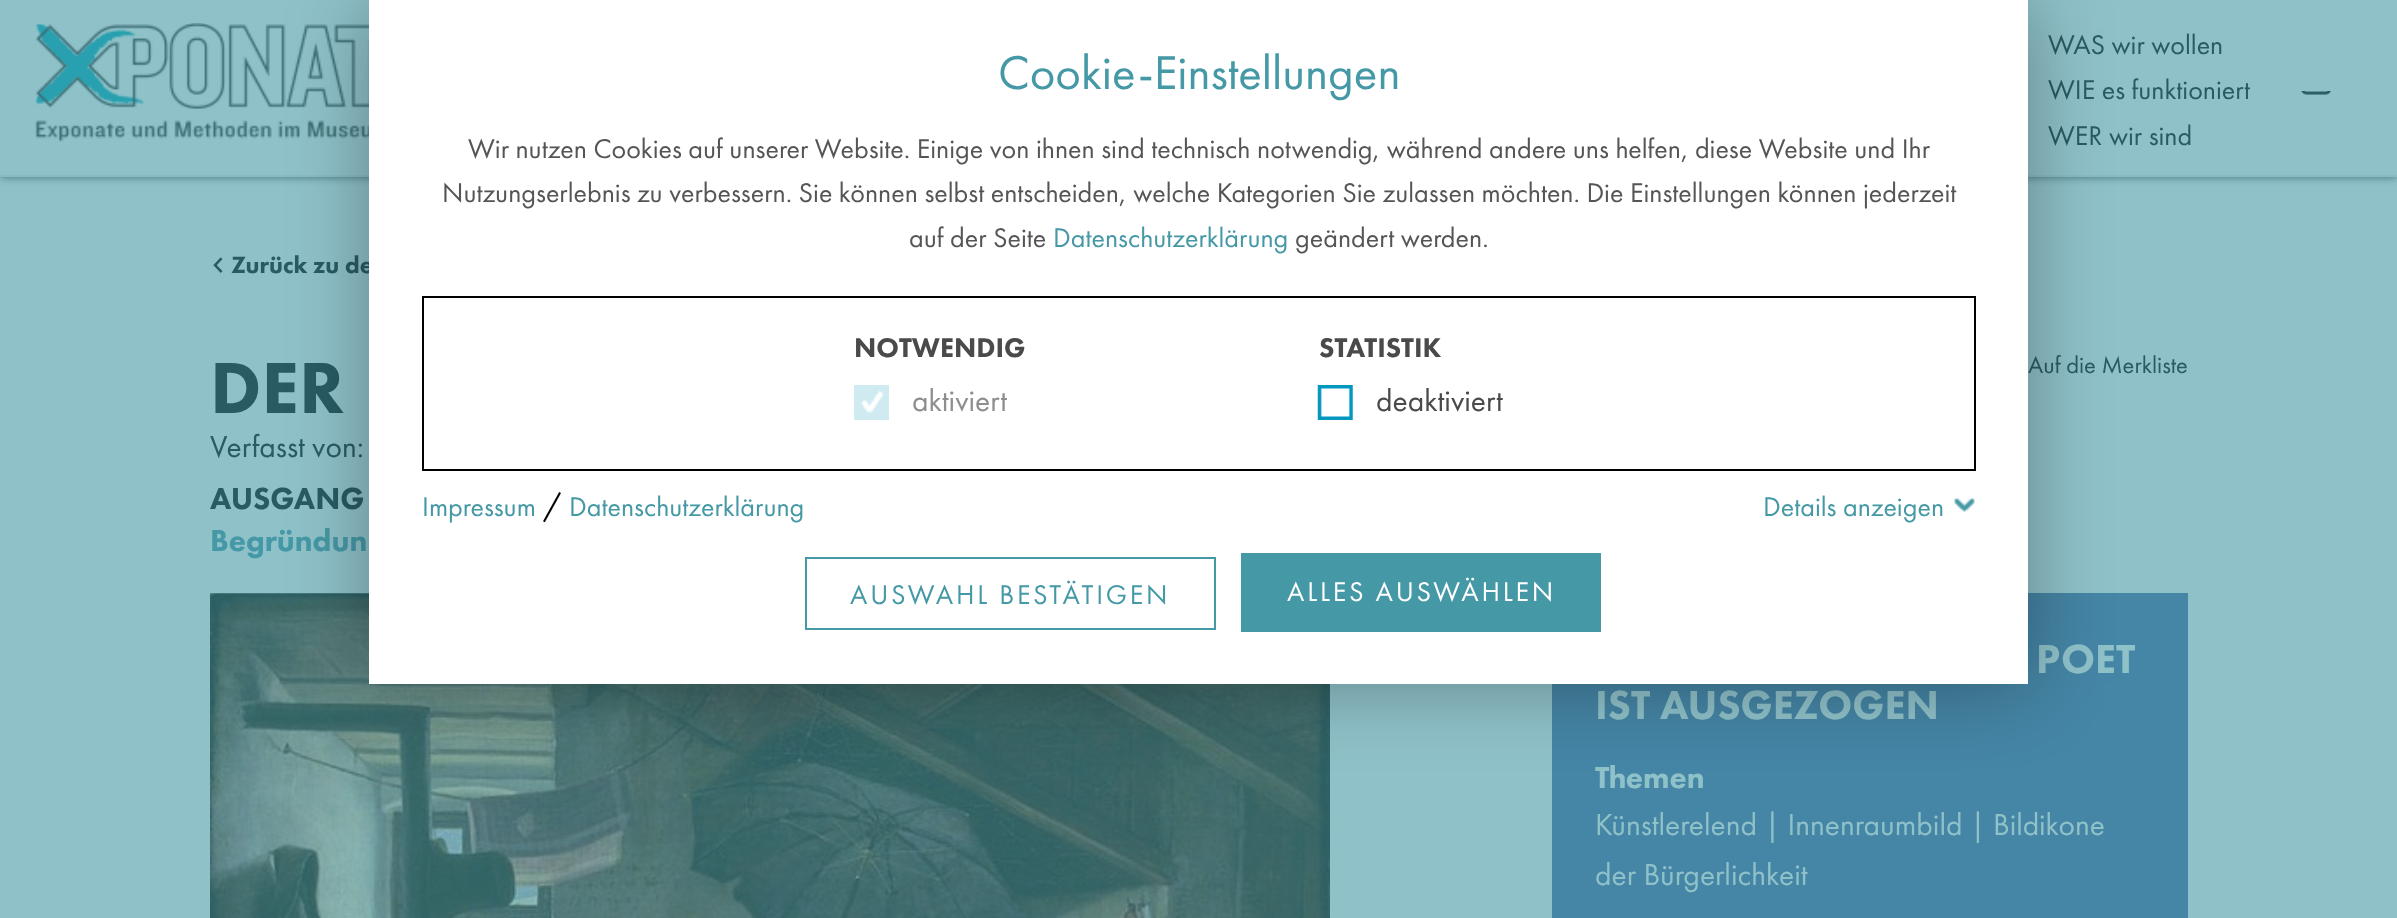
<!DOCTYPE html>
<meta charset="utf-8">
<style>body { margin: 0 } canvas { display: block }</style>
<canvas id="canvas" width="2397" height="918"></canvas>
<script type="module">
  const canvas = document.getElementById("canvas");
  const g = canvas.getContext("2d");
  g.miterLimit = 4;
  g.fontKerning = "normal";
  function drawText(s, x, y, [font, color]) {
    g.font = font;
    g.fillStyle = color;
    g.fillText(s, x, y);
  }
  function fillBox(x, y, w, h, color) {
    g.fillStyle = color;
    g.fillRect(x, y, w, h);
  }
  async function drawPicture(src, x, y, w, h) {
    const img = new Image();
    img.src = src;
    await img.decode();
    g.drawImage(img, x, y, w, h);
  }

  const s1 = ["28px Futura PT", "#295B63"];
  const s2 = ["900 24.5px Futura PT", "#295B63"];
  const s3 = ["900 75px Futura PT", "#295B63"];
  const s4 = ["24.5px Futura PT", "#295B63"];
  const s5 = ["31.5px Futura PT", "#295B63"];
  const s6 = ["900 31.5px Futura PT", "#295B63"];
  const s7 = ["900 31.5px Futura PT", "#4598A5"];
  const s8 = ["900 42px Futura PT", "#8FC1C9"];
  const s9 = ["900 31.5px Futura PT", "#8FC1C9"];
  const s10 = ["31.5px Futura PT", "#8FC1C9"];
  const s11 = ["49px Futura PT", "#4598A5"];
  const s12 = ["28px Futura PT", "#555555"];
  const s13 = ["28px Futura PT", "#4598A5"];
  const s14 = ["900 28px Futura PT", "#4A4A4A"];
  const s15 = ["31.5px Futura PT", "#8E8E8E"];
  const s16 = ["31.5px Futura PT", "#4A4A4A"];
  const s17 = ["31.5px Futura PT", "#000000"];
  const s18 = ["28px Futura PT", "#FFFFFF"];

  fillBox(0, 0, 2397, 918, "#8FC1C9");
  g.fillStyle = "rgba(41, 91, 99, 0.75)";
  g.filter = "blur(4.5px)";
  g.beginPath();
  g.rect(0, 0, 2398, 177);
  g.fill();
  g.filter = "none";
  fillBox(0, 0, 2397, 175, "#8FC1C9");
  fillBox(0, 175, 2397, 2, "#89BAC2");
  await drawPicture("pic1.png", 35, 23, 334, 119);
  drawText("WAS wir wollen", 2048, 54, s1);
  drawText("WIE es funktioniert", 2048, 99, s1);
  drawText("WER wir sind", 2048, 145, s1);
  await drawPicture("pic2.png", 2301, 91, 30, 4);
  await drawPicture("pic3.png", 213, 257, 10, 16);
  drawText("Zurück zu de", 231, 273, s2);
  drawText("DER", 210, 413, s3);
  drawText("Auf die Merkliste", 2028, 373, s4);
  drawText("Verfasst von:", 210, 457, s5);
  drawText("AUSGANG", 210, 509, s6);
  drawText("Begründun", 210, 551, s7);
  await drawPicture("pic4.png", 210, 593, 1120, 325);
  fillBox(1552, 593, 636, 325, "#4585A5");
  drawText("POET", 2036, 673, s8);
  drawText("IST AUSGEZOGEN", 1595, 719, s8);
  drawText("Themen", 1595, 788, s9);
  drawText("Künstlerelend | Innenraumbild | Bildikone", 1595, 835, s10);
  drawText("der Bürgerlichkeit", 1595, 885, s10);
  g.fillStyle = "rgba(0, 0, 0, 0.33)";
  g.filter = "blur(40px)";
  g.beginPath();
  g.rect(371, 2, 1656, 681);
  g.fill();
  g.filter = "none";
  fillBox(369, 0, 1659, 684, "#FFFFFF");
  drawText("Cookie-Einstellungen", 998, 89, s11);
  drawText("Wir nutzen Cookies auf unserer Website. Einige von ihnen sind technisch notwendig, während andere uns helfen, diese Website und Ihr", 468, 158, s12);
  drawText("Nutzungserlebnis zu verbessern. Sie können selbst entscheiden, welche Kategorien Sie zulassen möchten. Die Einstellungen können jederzeit", 442, 202, s12);
  drawText("auf der Seite", 909, 247, s12);
  drawText("Datenschutzerklärung", 1053, 247, s13);
  drawText("geändert werden.", 1295, 247, s12);
  g.strokeStyle = "#000000";
  g.lineWidth = 2;
  g.strokeRect(423, 297, 1552, 173);
  drawText("NOTWENDIG", 854, 357, s14);
  await drawPicture("pic5.png", 854, 385, 35, 35);
  drawText("aktiviert", 912, 411, s15);
  drawText("STATISTIK", 1319, 357, s14);
  await drawPicture("pic6.png", 1317, 385, 36, 35);
  drawText("deaktiviert", 1376, 411, s16);
  drawText("Impressum", 422, 516, s13);
  drawText("/", 543, 516, s17);
  drawText("Datenschutzerklärung", 569, 516, s13);
  drawText("Details anzeigen", 1763, 516, s13);
  await drawPicture("pic7.png", 1954, 498, 21, 14);
  g.strokeStyle = "#4598A5";
  g.strokeRect(806, 558, 409, 71);
  g.letterSpacing = "2.75px";
  drawText("AUSWAHL BESTÄTIGEN", 850, 604, s13);
  fillBox(1241, 553, 360, 79, "#4598A5");
  drawText("ALLES AUSWÄHLEN", 1287, 601, s18);
</script>
